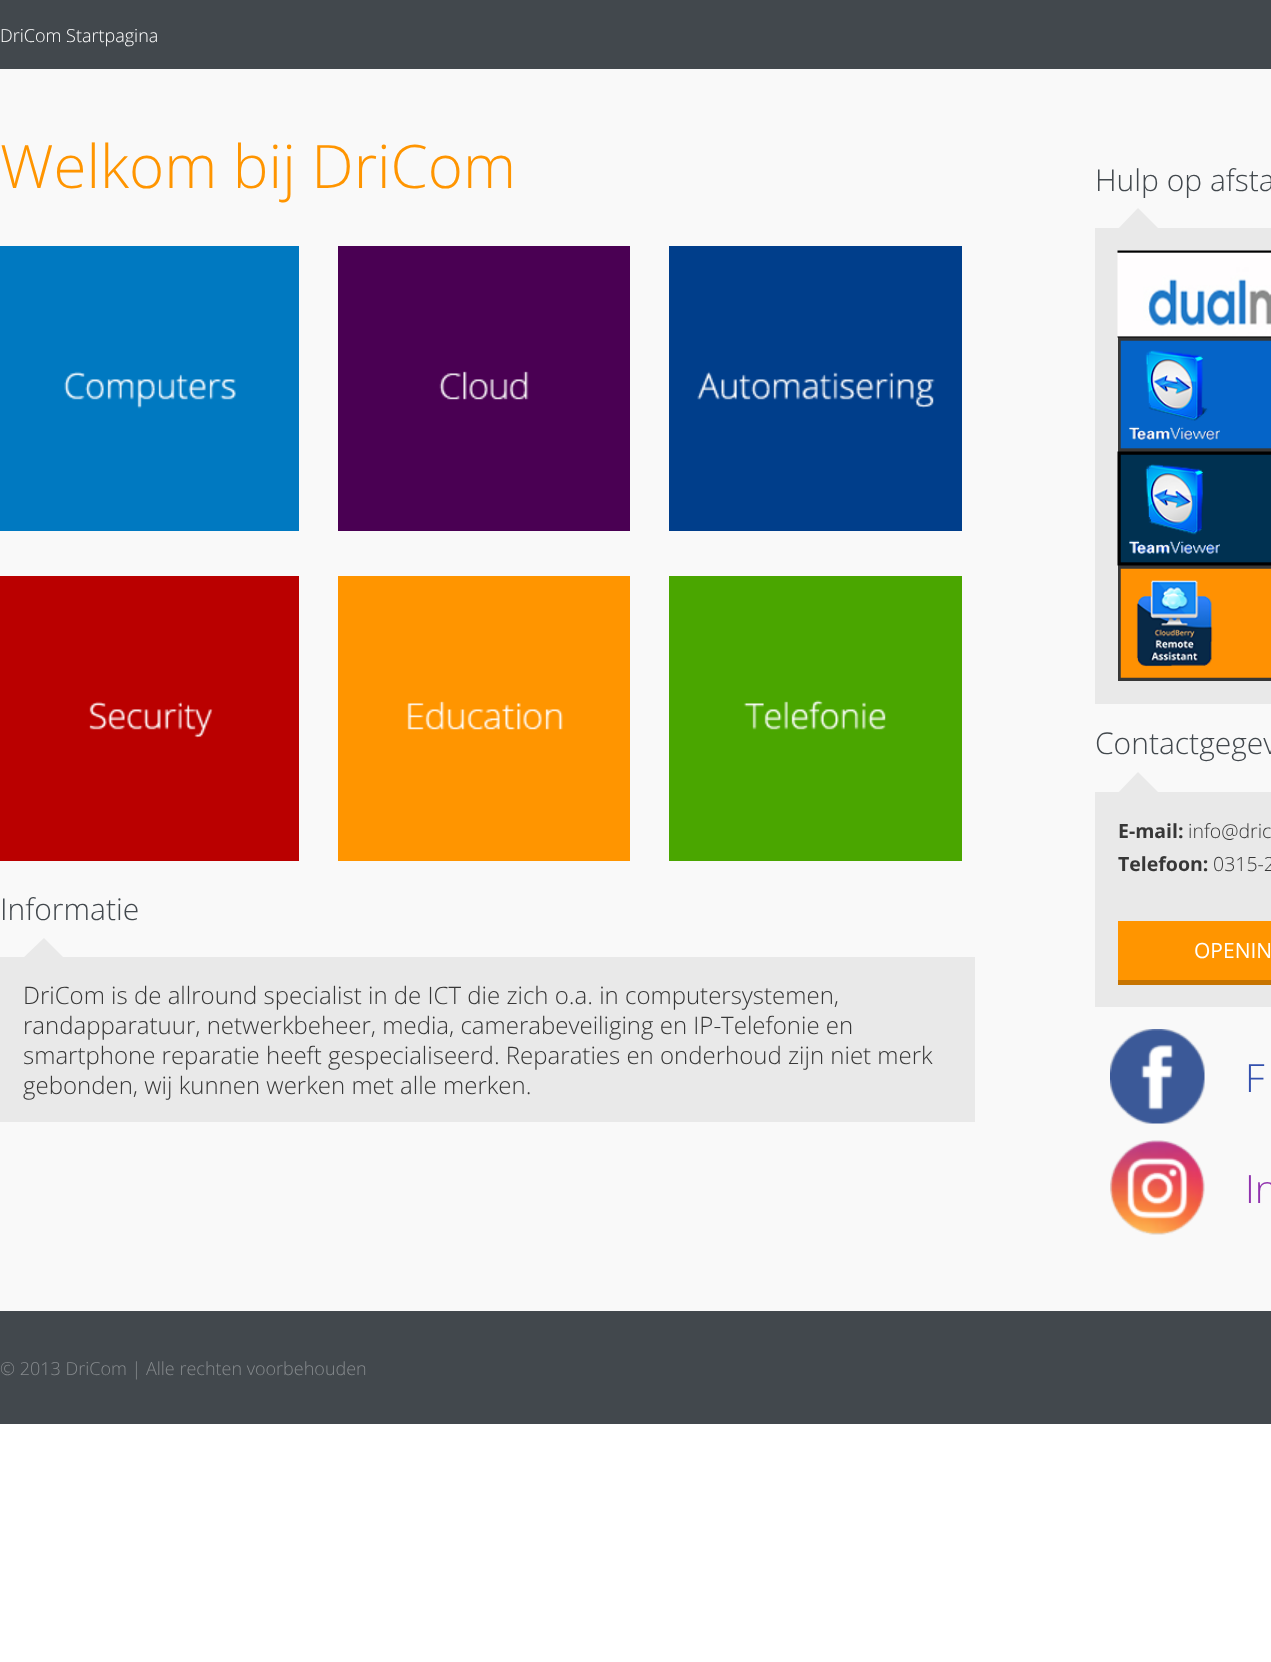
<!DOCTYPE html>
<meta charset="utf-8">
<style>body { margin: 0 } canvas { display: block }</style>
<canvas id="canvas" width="1271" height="1662"></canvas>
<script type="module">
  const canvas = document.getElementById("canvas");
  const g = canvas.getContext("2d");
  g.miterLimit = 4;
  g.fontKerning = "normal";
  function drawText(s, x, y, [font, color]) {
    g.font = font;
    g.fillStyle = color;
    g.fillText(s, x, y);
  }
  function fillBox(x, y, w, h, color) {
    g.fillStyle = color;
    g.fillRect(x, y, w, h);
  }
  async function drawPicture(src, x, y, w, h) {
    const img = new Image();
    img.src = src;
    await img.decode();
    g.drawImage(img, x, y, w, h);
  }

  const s1 = ["300 18px Open Sans", "#FFFFFF"];
  const s2 = ["300 60px Open Sans", "#FF9500"];
  const s3 = ["300 30px Open Sans", "#42484D"];
  const s4 = ["300 24px Open Sans", "#373737"];
  const s5 = ["bold 19.5px Open Sans", "#373737"];
  const s6 = ["300 19.5px Open Sans", "#373737"];
  const s7 = ["21px Open Sans", "#FFFFFF"];
  const s8 = ["300 39px Open Sans", "#3350AE"];
  const s9 = ["300 39px Open Sans", "#9133AE"];
  const s10 = ["300 18px Open Sans", "#868A8D"];

  fillBox(0, 0, 1271, 1662, "#FFFFFF");
  fillBox(0, 0, 1271, 69, "#42484D");
  drawText("DriCom Startpagina", 0, 42, s1);
  fillBox(0, 69, 1271, 1242, "#F9F9F9");
  drawText("Welkom bij DriCom", 0, 188, s2);
  fillBox(0, 246, 299, 285, "#0079C1");
  await drawPicture("pic1.png", 64, 371, 172, 38);
  fillBox(338, 246, 292, 285, "#4A0053");
  await drawPicture("pic2.png", 439, 371, 90, 29);
  fillBox(669, 246, 293, 285, "#003E8B");
  await drawPicture("pic3.png", 697, 371, 238, 37);
  fillBox(0, 576, 299, 285, "#BA0000");
  await drawPicture("pic4.png", 89, 701, 124, 37);
  fillBox(338, 576, 292, 285, "#FF9500");
  await drawPicture("pic5.png", 407, 701, 156, 29);
  fillBox(669, 576, 293, 285, "#4AA600");
  await drawPicture("pic6.png", 743, 700, 143, 30);
  drawText("Informatie", 0, 920, s3);
  fillBox(0, 957, 975, 165, "#E9E9E9");
  g.beginPath();
  g.moveTo(66, 960);
  g.lineTo(21, 960);
  g.lineTo(44, 938);
  g.closePath();
  g.fill();
  drawText("DriCom is de allround specialist in de ICT die zich o.a. in computersystemen,", 23, 1004, s4);
  drawText("randapparatuur, netwerkbeheer, media, camerabeveiliging en IP-Telefonie en", 23, 1034, s4);
  drawText("smartphone reparatie heeft gespecialiseerd. Reparaties en onderhoud zijn niet merk", 23, 1064, s4);
  drawText("gebonden, wij kunnen werken met alle merken.", 23, 1094, s4);
  drawText("Hulp op afsta", 1095, 191, s3);
  fillBox(1095, 228, 176, 476, "#E9E9E9");
  g.beginPath();
  g.moveTo(1161, 231);
  g.lineTo(1116, 231);
  g.lineTo(1138, 208);
  g.closePath();
  g.fill();
  fillBox(1118, 337, 153, 115, "#373737");
  await drawPicture("pic7.png", 1117, 250, 154, 88);
  await drawPicture("pic8.png", 1120, 340, 151, 109);
  fillBox(1118, 565, 153, 116, "#373737");
  await drawPicture("pic9.png", 1117, 451, 154, 115);
  await drawPicture("pic10.png", 1120, 568, 151, 110);
  drawText("Contactgegev", 1095, 754, s3);
  fillBox(1095, 792, 176, 215, "#E9E9E9");
  g.beginPath();
  g.moveTo(1161, 795);
  g.lineTo(1116, 795);
  g.lineTo(1138, 772);
  g.closePath();
  g.fill();
  drawText("E-mail:", 1118, 838, s5);
  drawText("info@dric", 1188, 838, s6);
  drawText("Telefoon:", 1118, 871, s5);
  drawText("0315-2", 1213, 871, s6);
  fillBox(1118, 921, 153, 59, "#FF9500");
  fillBox(1118, 980, 153, 5, "#C77400");
  drawText("OPENIN", 1194, 958, s7);
  await drawPicture("pic11.png", 1110, 1029, 95, 95);
  drawText("F", 1245, 1092, s8);
  await drawPicture("pic12.png", 1110, 1140, 95, 95);
  drawText("In", 1245, 1203, s9);
  fillBox(0, 1311, 1271, 113, "#42484D");
  drawText("© 2013 DriCom | Alle rechten voorbehouden", 0, 1375, s10);
</script>
